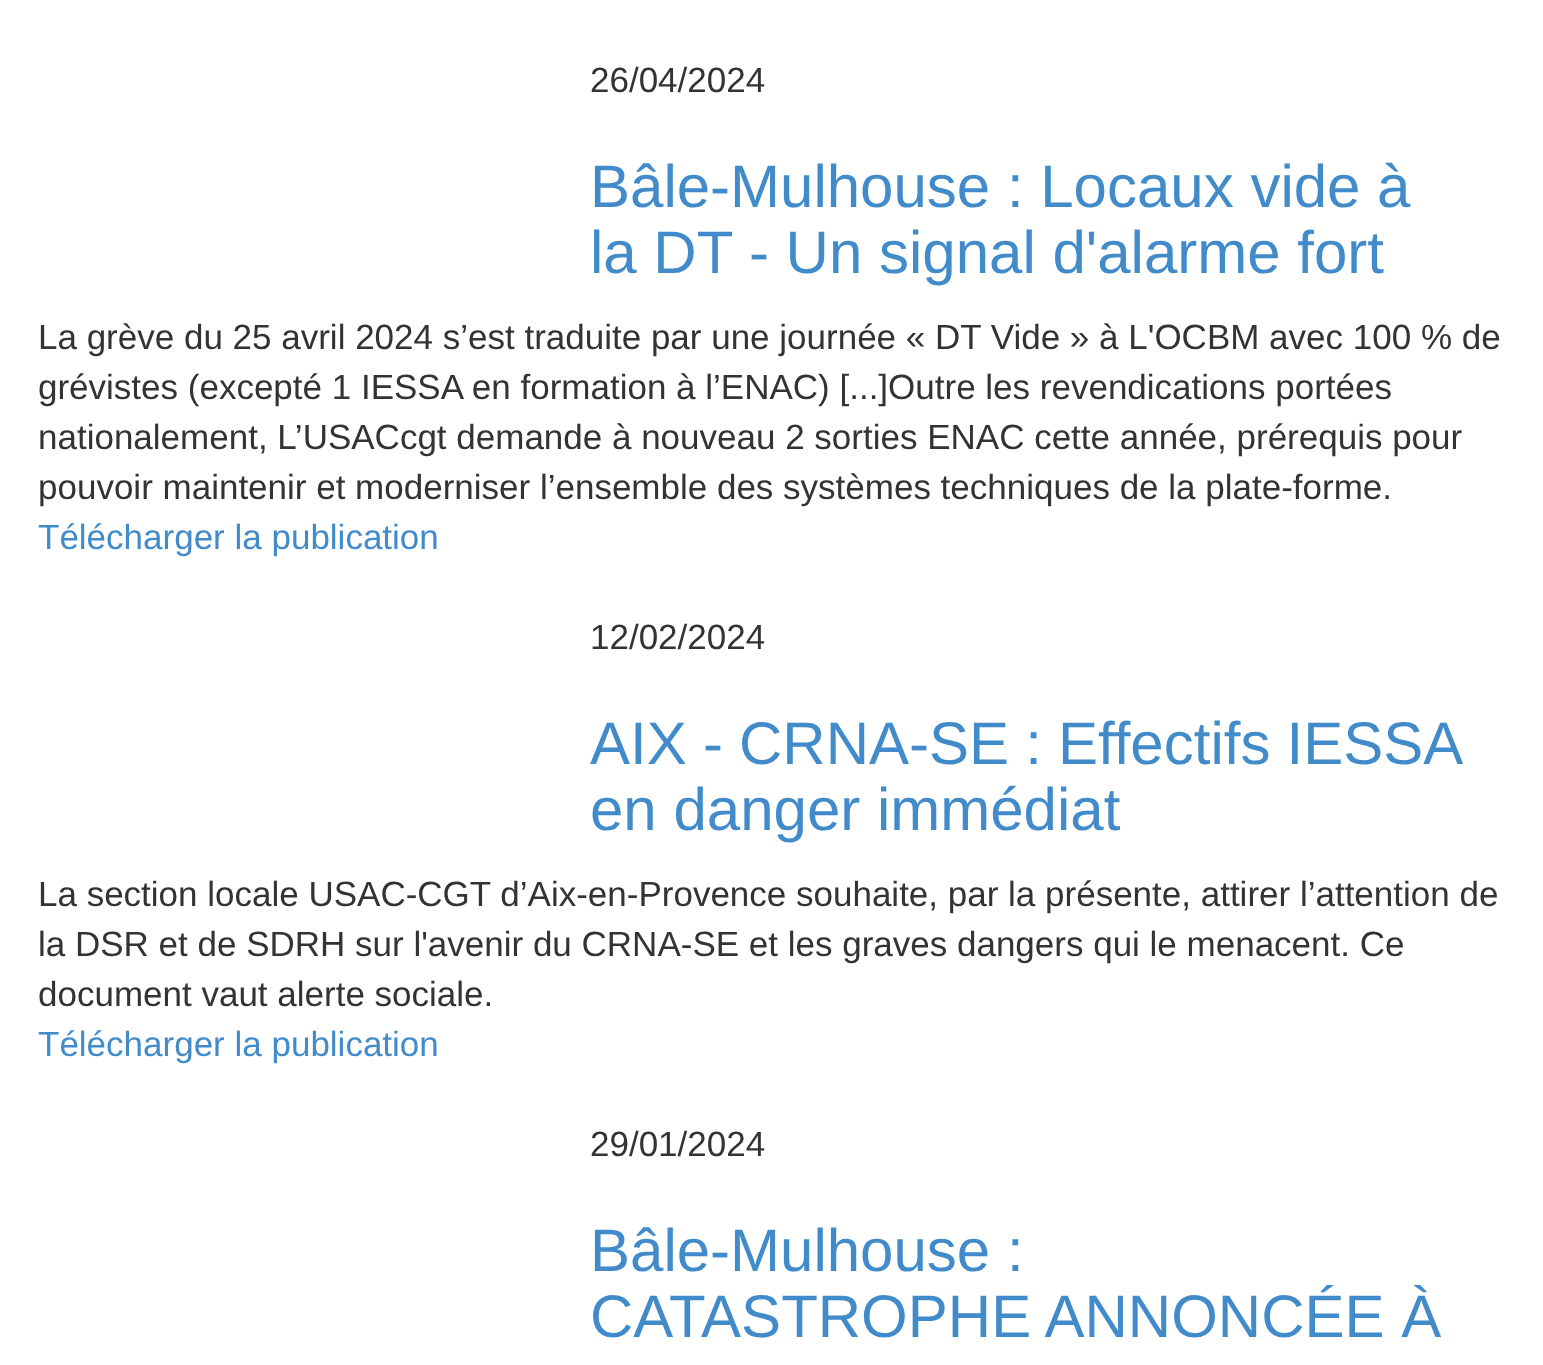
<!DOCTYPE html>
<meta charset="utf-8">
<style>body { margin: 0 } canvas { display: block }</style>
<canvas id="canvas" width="1543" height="1365"></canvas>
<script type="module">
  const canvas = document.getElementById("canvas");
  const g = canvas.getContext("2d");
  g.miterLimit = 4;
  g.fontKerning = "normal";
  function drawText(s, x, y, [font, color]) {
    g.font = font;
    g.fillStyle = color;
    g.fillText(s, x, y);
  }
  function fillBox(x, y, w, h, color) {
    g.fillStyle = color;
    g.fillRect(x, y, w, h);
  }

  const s1 = ["35px Liberation Sans", "#333333"];
  const s2 = ["60px Liberation Sans", "#428BCA"];
  const s3 = ["35px Liberation Sans", "#428BCA"];

  fillBox(0, 0, 1543, 1365, "#FFFFFF");
  drawText("26/04/2024", 590, 92, s1);
  drawText("Bâle-Mulhouse : Locaux vide à", 590, 207, s2);
  drawText("la DT - Un signal d'alarme fort", 590, 273, s2);
  drawText("La grève du 25 avril 2024 s’est traduite par une journée « DT Vide » à L'OCBM avec 100 % de", 38, 349, s1);
  drawText("grévistes (excepté 1 IESSA en formation à l’ENAC) [...]Outre les revendications portées", 38, 399, s1);
  drawText("nationalement, L’USACcgt demande à nouveau 2 sorties ENAC cette année, prérequis pour", 38, 449, s1);
  drawText("pouvoir maintenir et moderniser l’ensemble des systèmes techniques de la plate-forme.", 38, 499, s1);
  drawText("Télécharger la publication", 38, 549, s3);
  drawText("12/02/2024", 590, 649, s1);
  g.wordSpacing = "-0.5px";
  drawText("AIX - CRNA-SE : Effectifs IESSA", 590, 764, s2);
  g.wordSpacing = "0px";
  drawText("en danger immédiat", 590, 830, s2);
  drawText("La section locale USAC-CGT d’Aix-en-Provence souhaite, par la présente, attirer l’attention de", 38, 906, s1);
  drawText("la DSR et de SDRH sur l'avenir du CRNA-SE et les graves dangers qui le menacent. Ce", 38, 956, s1);
  drawText("document vaut alerte sociale.", 38, 1006, s1);
  drawText("Télécharger la publication", 38, 1056, s3);
  drawText("29/01/2024", 590, 1156, s1);
  drawText("Bâle-Mulhouse :", 590, 1271, s2);
  drawText("CATASTROPHE ANNONCÉE À", 590, 1337, s2);
</script>
